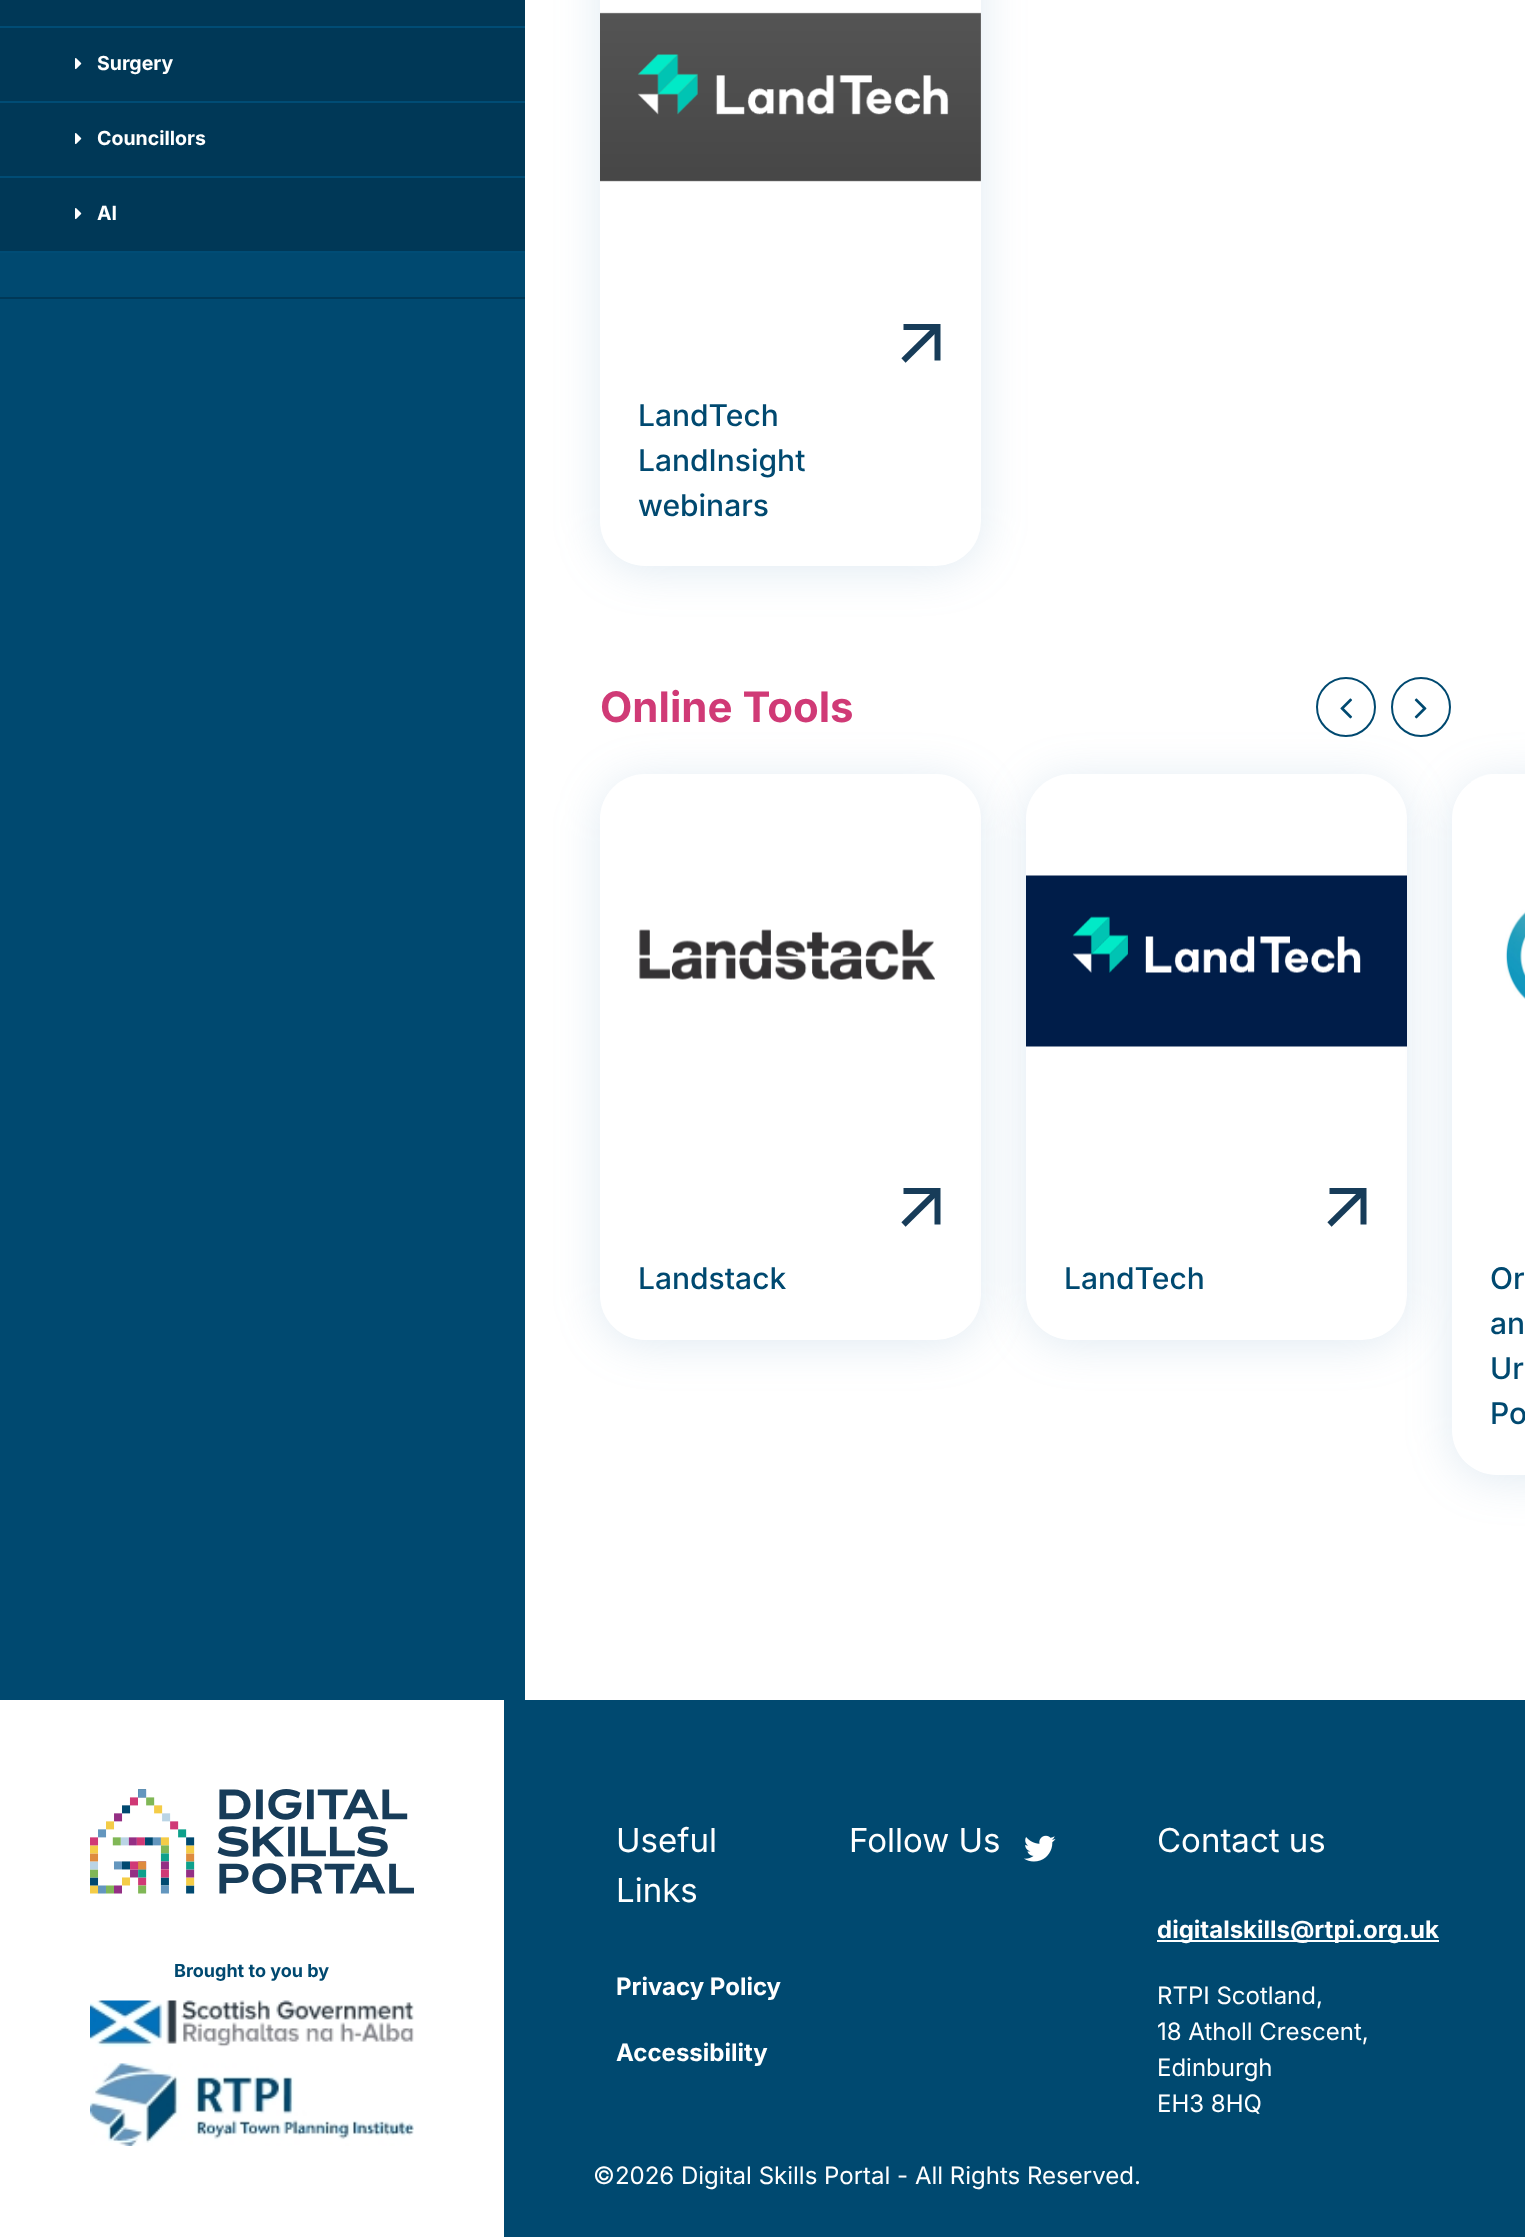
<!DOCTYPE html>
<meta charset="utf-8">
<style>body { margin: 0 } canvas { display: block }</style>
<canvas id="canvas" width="1525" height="2237"></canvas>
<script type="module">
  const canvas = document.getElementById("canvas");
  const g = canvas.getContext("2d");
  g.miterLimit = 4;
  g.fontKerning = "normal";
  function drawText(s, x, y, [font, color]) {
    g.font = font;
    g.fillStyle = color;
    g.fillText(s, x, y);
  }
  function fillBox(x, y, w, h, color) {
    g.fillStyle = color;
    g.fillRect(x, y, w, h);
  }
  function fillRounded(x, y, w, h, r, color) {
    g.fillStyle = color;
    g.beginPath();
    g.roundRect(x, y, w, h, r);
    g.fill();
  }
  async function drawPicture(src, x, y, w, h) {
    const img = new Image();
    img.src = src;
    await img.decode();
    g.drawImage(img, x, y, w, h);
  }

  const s1 = ["bold 19.5px Inter", "#FFFFFF"];
  const s2 = ["500 30px Inter", "#004970"];
  const s3 = ["bold 42px Inter", "#D03A76"];
  const s4 = ["bold 18px Inter", "#004970"];
  const s5 = ["33px Inter", "#FFFFFF"];
  const s6 = ["bold 24px Inter", "#FFFFFF"];
  const s7 = ["24px Inter", "#FFFFFF"];

  fillBox(0, 0, 1525, 2237, "#FFFFFF");
  fillBox(0, 253, 525, 1447, "#004970");
  fillBox(0, 297, 525, 2, "#003857");
  fillBox(0, 0, 525, 251, "#003857");
  fillBox(0, 26, 525, 2, "#004C75");
  fillBox(0, 101, 525, 2, "#004C75");
  await drawPicture("pic1.png", 75, 58, 7, 12);
  drawText("Surgery", 97, 70, s1);
  fillBox(0, 176, 525, 2, "#004C75");
  await drawPicture("pic1.png", 75, 133, 7, 12);
  drawText("Councillors", 97, 145, s1);
  fillBox(0, 251, 525, 2, "#004C75");
  await drawPicture("pic1.png", 75, 208, 7, 12);
  drawText("AI", 97, 220, s1);
  g.fillStyle = "rgba(99, 150, 190, 0.2)";
  g.filter = "blur(22.5px)";
  g.beginPath();
  g.roundRect(600, -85, 381, 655, 45);
  g.fill();
  g.filter = "none";
  fillRounded(600, -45, 381, 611, 45, "#FFFFFF");
  await drawPicture("pic2.png", 600, 12, 381, 170);
  g.beginPath();
  g.moveTo(903.5, 360.5);
  g.lineTo(937.5, 327);
  g.strokeStyle = "#173C59";
  g.lineWidth = 6;
  g.lineJoin = "round";
  g.stroke();
  g.beginPath();
  g.moveTo(903.5, 327);
  g.lineTo(937.5, 327);
  g.lineTo(937.5, 360.5);
  g.lineJoin = "miter";
  g.stroke();
  drawText("LandTech", 638, 426, s2);
  drawText("LandInsight", 638, 471, s2);
  drawText("webinars", 638, 516, s2);
  drawText("Online Tools", 600, 722, s3);
  g.beginPath();
  g.arc(1346, 707, 29, 0, Math.PI * 2);
  g.strokeStyle = "#004970";
  g.lineWidth = 2;
  g.stroke();
  await drawPicture("pic3.png", 1340, 698, 13, 21);
  g.beginPath();
  g.arc(1421, 707, 29, 0, Math.PI * 2);
  g.stroke();
  await drawPicture("pic4.png", 1414, 698, 13, 21);
  g.fillStyle = "rgba(99, 150, 190, 0.2)";
  g.filter = "blur(22.5px)";
  g.beginPath();
  g.roundRect(600, 779, 381, 565, 45);
  g.fill();
  g.filter = "none";
  fillRounded(600, 774, 381, 566, 45, "#FFFFFF");
  await drawPicture("pic5.png", 639, 929, 296, 51);
  g.beginPath();
  g.moveTo(903.5, 1224.5);
  g.lineTo(937.5, 1191);
  g.strokeStyle = "#173C59";
  g.lineWidth = 6;
  g.lineJoin = "round";
  g.stroke();
  g.beginPath();
  g.moveTo(903.5, 1191);
  g.lineTo(937.5, 1191);
  g.lineTo(937.5, 1224.5);
  g.lineJoin = "miter";
  g.stroke();
  drawText("Landstack", 638, 1289, s2);
  g.fillStyle = "rgba(99, 150, 190, 0.2)";
  g.filter = "blur(22.5px)";
  g.beginPath();
  g.roundRect(1026, 779, 381, 565, 45);
  g.fill();
  g.filter = "none";
  fillRounded(1026, 774, 381, 566, 45, "#FFFFFF");
  await drawPicture("pic6.png", 1026, 875, 381, 172);
  g.beginPath();
  g.moveTo(1329.5, 1224.5);
  g.lineTo(1363.5, 1191);
  g.lineJoin = "round";
  g.stroke();
  g.beginPath();
  g.moveTo(1329.5, 1191);
  g.lineTo(1363.5, 1191);
  g.lineTo(1363.5, 1224.5);
  g.lineJoin = "miter";
  g.stroke();
  drawText("LandTech", 1064, 1289, s2);
  g.fillStyle = "rgba(99, 150, 190, 0.2)";
  g.filter = "blur(22.5px)";
  g.beginPath();
  g.roundRect(1452, 779, 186, 700, 45);
  g.fill();
  g.filter = "none";
  g.fillStyle = "#FFFFFF";
  g.beginPath();
  g.moveTo(1497, 774);
  g.lineTo(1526, 774);
  g.lineTo(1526, 1475);
  g.lineTo(1497, 1475);
  g.bezierCurveTo(1472, 1475, 1452, 1455, 1452, 1430);
  g.lineTo(1452, 819);
  g.bezierCurveTo(1452, 794, 1472, 774, 1497, 774);
  g.closePath();
  g.fill();
  await drawPicture("pic7.png", 1471, 774, 54, 225);
  drawText("Or", 1490, 1289, s2);
  drawText("an", 1490, 1334, s2);
  drawText("Ur", 1490, 1379, s2);
  drawText("Po", 1490, 1424, s2);
  await drawPicture("pic8.png", 90, 1789, 324, 105);
  drawText("Brought to you by", 174, 1977, s4);
  await drawPicture("pic9.png", 90, 2000, 324, 47);
  await drawPicture("pic10.png", 90, 2063, 324, 83);
  fillBox(504, 1700, 1021, 537, "#004970");
  drawText("Useful", 616, 1852, s5);
  drawText("Links", 616, 1902, s5);
  drawText("Privacy Policy", 616, 1995, s6);
  drawText("Accessibility", 616, 2061, s6);
  drawText("Follow Us", 849, 1852, s5);
  await drawPicture("pic11.png", 1024, 1835, 32, 27);
  drawText("Contact us", 1157, 1852, s5);
  fillBox(1157, 1940, 282, 2, "#FFFFFF");
  drawText("digitalskills@rtpi.org.uk", 1157, 1938, s6);
  drawText("RTPI Scotland,", 1157, 2004, s7);
  drawText("18 Atholl Crescent,", 1157, 2040, s7);
  drawText("Edinburgh", 1157, 2076, s7);
  drawText("EH3 8HQ", 1157, 2112, s7);
  drawText("©2026 Digital Skills Portal - All Rights Reserved.", 593, 2184, s7);
</script>
